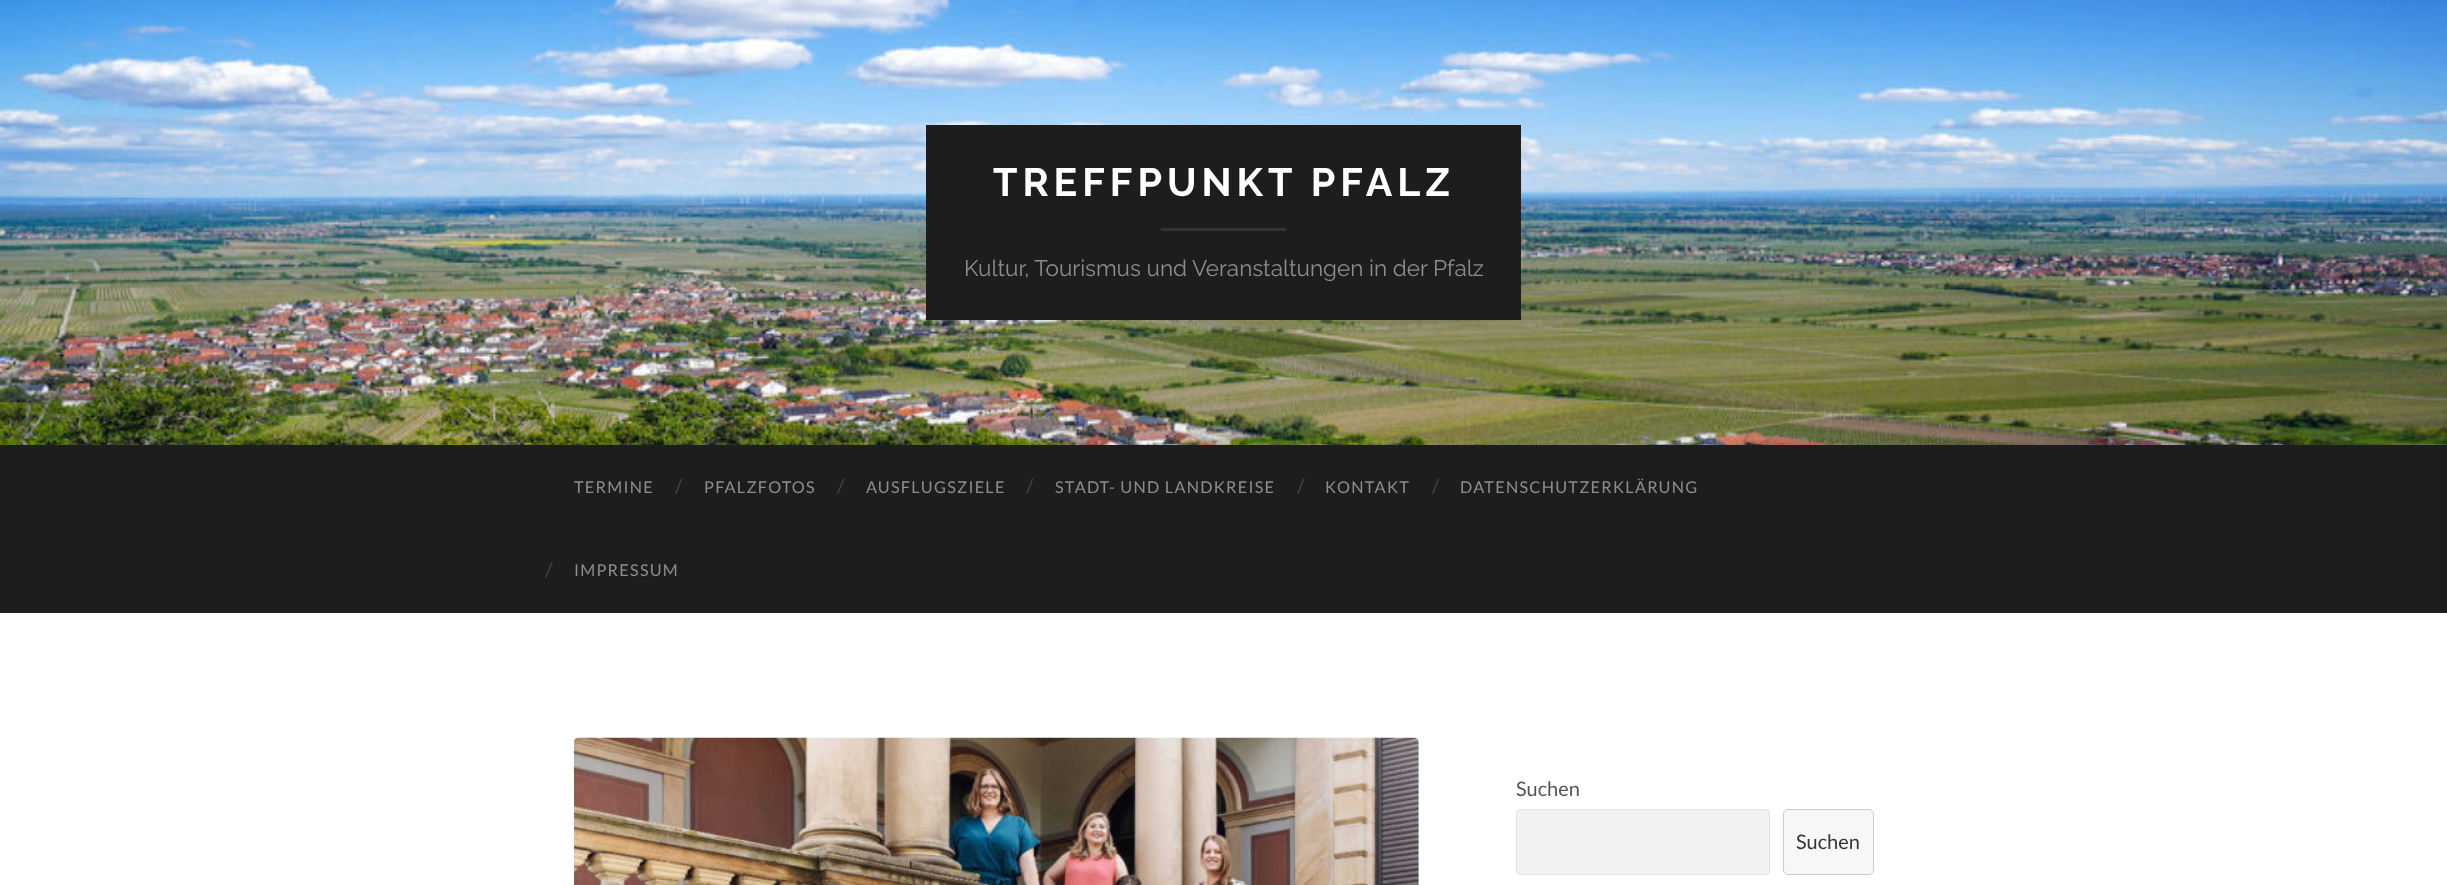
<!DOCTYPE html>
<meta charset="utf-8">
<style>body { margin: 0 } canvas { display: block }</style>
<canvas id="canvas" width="2447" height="885"></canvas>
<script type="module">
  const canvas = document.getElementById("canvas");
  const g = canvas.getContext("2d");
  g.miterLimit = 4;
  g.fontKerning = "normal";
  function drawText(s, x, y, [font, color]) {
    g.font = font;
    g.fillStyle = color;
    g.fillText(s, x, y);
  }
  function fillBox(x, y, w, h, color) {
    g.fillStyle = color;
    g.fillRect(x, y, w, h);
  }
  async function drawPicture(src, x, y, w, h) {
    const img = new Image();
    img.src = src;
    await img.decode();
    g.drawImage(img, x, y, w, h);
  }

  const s1 = ["100 39.4px Raleway", "#FFFFFF"];
  const s2 = ["100 22.5px 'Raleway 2'", "#8E8E8E"];
  const s3 = ["16.25px Lato", "#8E8E8E"];
  const s4 = ["20px Lato", "#444444"];
  const s5 = ["20px Lato", "#555555"];
  const s6 = ["20px Lato", "#32373C"];

  fillBox(0, 0, 2447, 885, "#FFFFFF");
  await drawPicture("pic1.png", 0, 0, 2447, 445);
  fillBox(926, 125, 595, 195, "#1D1D1D");
  g.letterSpacing = "5px";
  drawText("TREFFPUNKT PFALZ", 993, 196, s1);
  fillBox(1161, 228, 125, 3, "#343434");
  g.letterSpacing = "0px";
  drawText("Kultur, Tourismus und Veranstaltungen in der Pfalz", 964, 276, s2);
  fillBox(0, 445, 2447, 168, "#1D1D1D");
  g.letterSpacing = "1.25px";
  drawText("TERMINE", 574, 493, s3);
  g.letterSpacing = "0px";
  drawText("/", 675, 493, s4);
  g.letterSpacing = "1.25px";
  drawText("PFALZFOTOS", 704, 493, s3);
  g.letterSpacing = "0px";
  drawText("/", 837, 493, s4);
  g.letterSpacing = "1.25px";
  drawText("AUSFLUGSZIELE", 866, 493, s3);
  g.letterSpacing = "0px";
  drawText("/", 1026, 493, s4);
  g.letterSpacing = "1.25px";
  drawText("STADT- UND LANDKREISE", 1055, 493, s3);
  g.letterSpacing = "0px";
  drawText("/", 1297, 493, s4);
  g.letterSpacing = "1.25px";
  drawText("KONTAKT", 1325, 493, s3);
  g.letterSpacing = "0px";
  drawText("/", 1432, 493, s4);
  g.letterSpacing = "1.25px";
  drawText("DATENSCHUTZERKLÄRUNG", 1460, 493, s3);
  g.letterSpacing = "0px";
  drawText("/", 545, 577, s4);
  g.letterSpacing = "1.25px";
  drawText("IMPRESSUM", 574, 576, s3);
  await drawPicture("pic2.png", 573, 737, 846, 148);
  g.letterSpacing = "0px";
  drawText("Suchen", 1516, 796, s5);
  g.fillStyle = "#F2F2F2";
  g.beginPath();
  g.roundRect(1516.5, 809.5, 253, 65, 3.5);
  g.fill();
  g.strokeStyle = "#E1E1E3";
  g.stroke();
  g.fillStyle = "#F7F7F7";
  g.beginPath();
  g.roundRect(1783.5, 809.5, 90, 65, 4.5);
  g.fill();
  g.strokeStyle = "#CCCCCC";
  g.stroke();
  drawText("Suchen", 1796, 849, s6);
</script>
